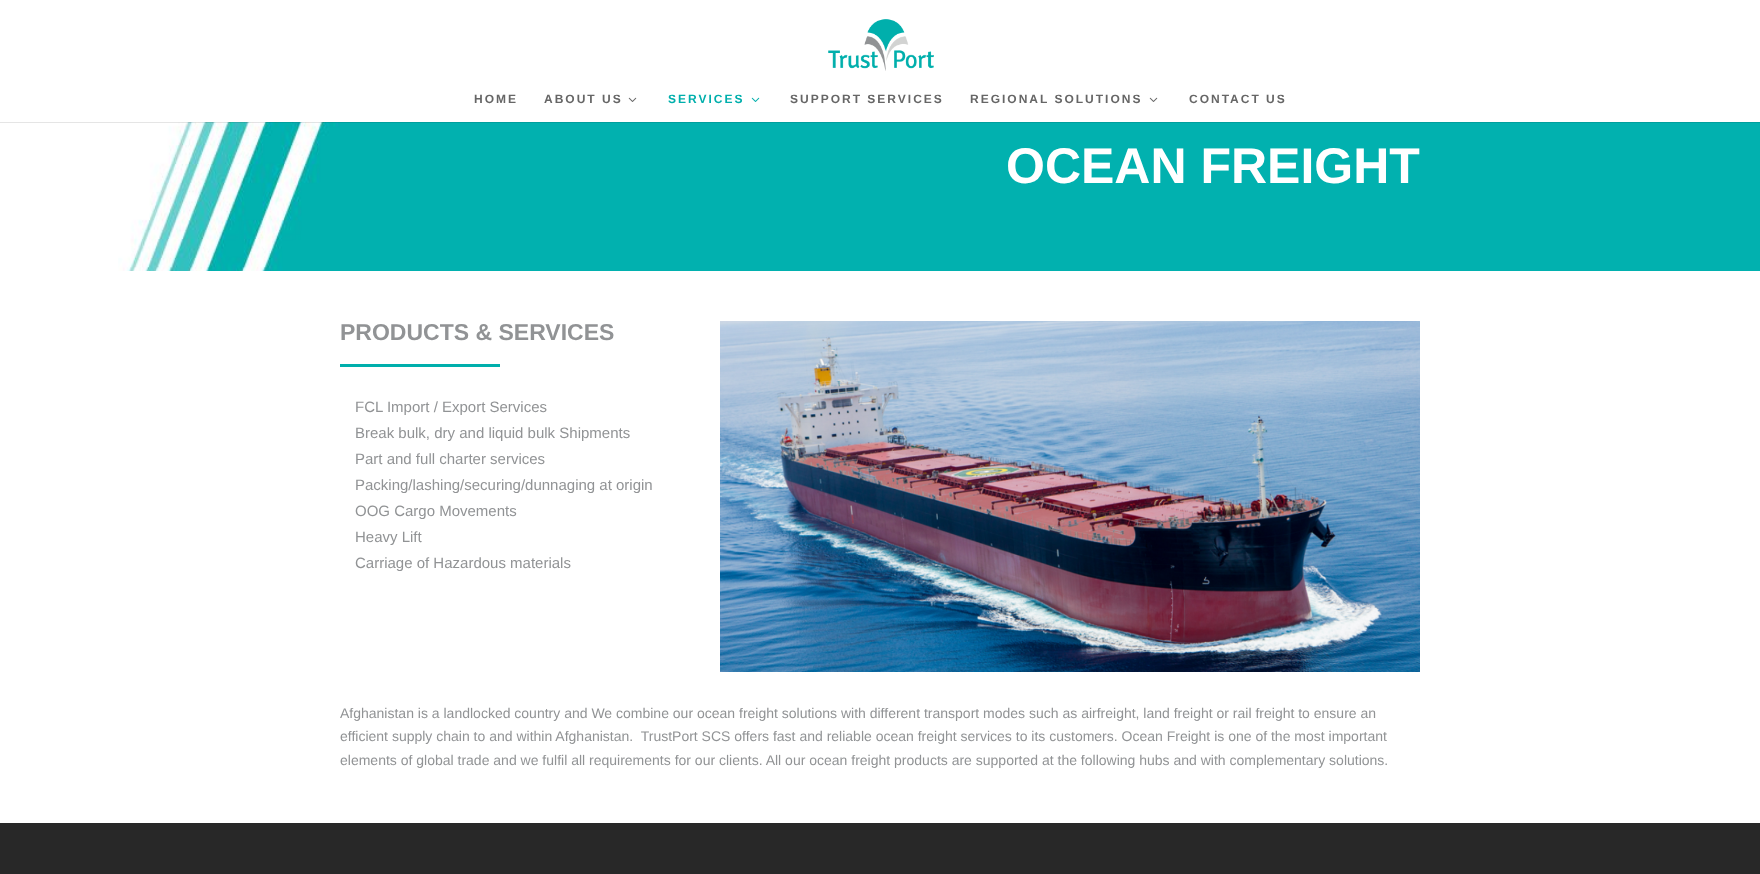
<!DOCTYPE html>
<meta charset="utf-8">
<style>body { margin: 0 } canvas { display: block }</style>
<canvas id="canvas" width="1760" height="874"></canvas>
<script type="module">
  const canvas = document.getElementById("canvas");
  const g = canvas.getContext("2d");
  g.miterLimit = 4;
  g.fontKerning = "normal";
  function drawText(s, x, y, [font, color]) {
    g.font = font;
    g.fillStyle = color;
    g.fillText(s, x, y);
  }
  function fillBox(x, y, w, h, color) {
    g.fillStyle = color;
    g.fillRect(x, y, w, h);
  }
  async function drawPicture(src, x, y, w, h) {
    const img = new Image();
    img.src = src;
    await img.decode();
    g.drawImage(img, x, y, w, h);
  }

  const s1 = ["bold 12px Liberation Sans", "#666666"];
  const s2 = ["bold 12px Liberation Sans", "#00AFAC"];
  const s3 = ["bold 50px Liberation Sans", "#FFFFFF"];
  const s4 = ["bold 23px Liberation Sans", "#919395"];
  const s5 = ["15px Liberation Sans", "#919395"];
  const s6 = ["14px Liberation Sans", "#919395"];

  fillBox(0, 0, 1760, 874, "#FFFFFF");
  await drawPicture("pic4.png", 118, 122, 1642, 149);
  fillBox(0, 122, 1760, 1, "rgba(0, 0, 0, 0.1)");
  await drawPicture("pic1.png", 828, 19, 106, 52);
  g.letterSpacing = "2px";
  drawText("HOME", 474, 103, s1);
  drawText("ABOUT US", 544, 103, s1);
  await drawPicture("pic2.png", 628, 97, 9, 5);
  drawText("SERVICES", 668, 103, s2);
  await drawPicture("pic3.png", 751, 97, 9, 5);
  drawText("SUPPORT SERVICES", 790, 103, s1);
  drawText("REGIONAL SOLUTIONS", 970, 103, s1);
  await drawPicture("pic2.png", 1149, 97, 9, 5);
  drawText("CONTACT US", 1189, 103, s1);
  g.letterSpacing = "0px";
  drawText("OCEAN FREIGHT", 1006, 183, s3);
  drawText("PRODUCTS & SERVICES", 340, 340, s4);
  fillBox(340, 364, 160, 3, "#00AFAC");
  drawText("FCL Import / Export Services", 355, 412, s5);
  drawText("Break bulk, dry and liquid bulk Shipments", 355, 438, s5);
  drawText("Part and full charter services", 355, 464, s5);
  drawText("Packing/lashing/securing/dunnaging at origin", 355, 490, s5);
  drawText("OOG Cargo Movements", 355, 516, s5);
  drawText("Heavy Lift", 355, 542, s5);
  drawText("Carriage of Hazardous materials", 355, 568, s5);
  await drawPicture("pic5.png", 720, 321, 700, 351);
  drawText("Afghanistan is a landlocked country and We combine our ocean freight solutions with different transport modes such as airfreight, land freight or rail freight to ensure an", 340, 718, s6);
  drawText("efficient supply chain to and within Afghanistan.  TrustPort SCS offers fast and reliable ocean freight services to its customers. Ocean Freight is one of the most important", 340, 741, s6);
  drawText("elements of global trade and we fulfil all requirements for our clients. All our ocean freight products are supported at the following hubs and with complementary solutions.", 340, 765, s6);
  fillBox(0, 823, 1760, 51, "#282828");
</script>
